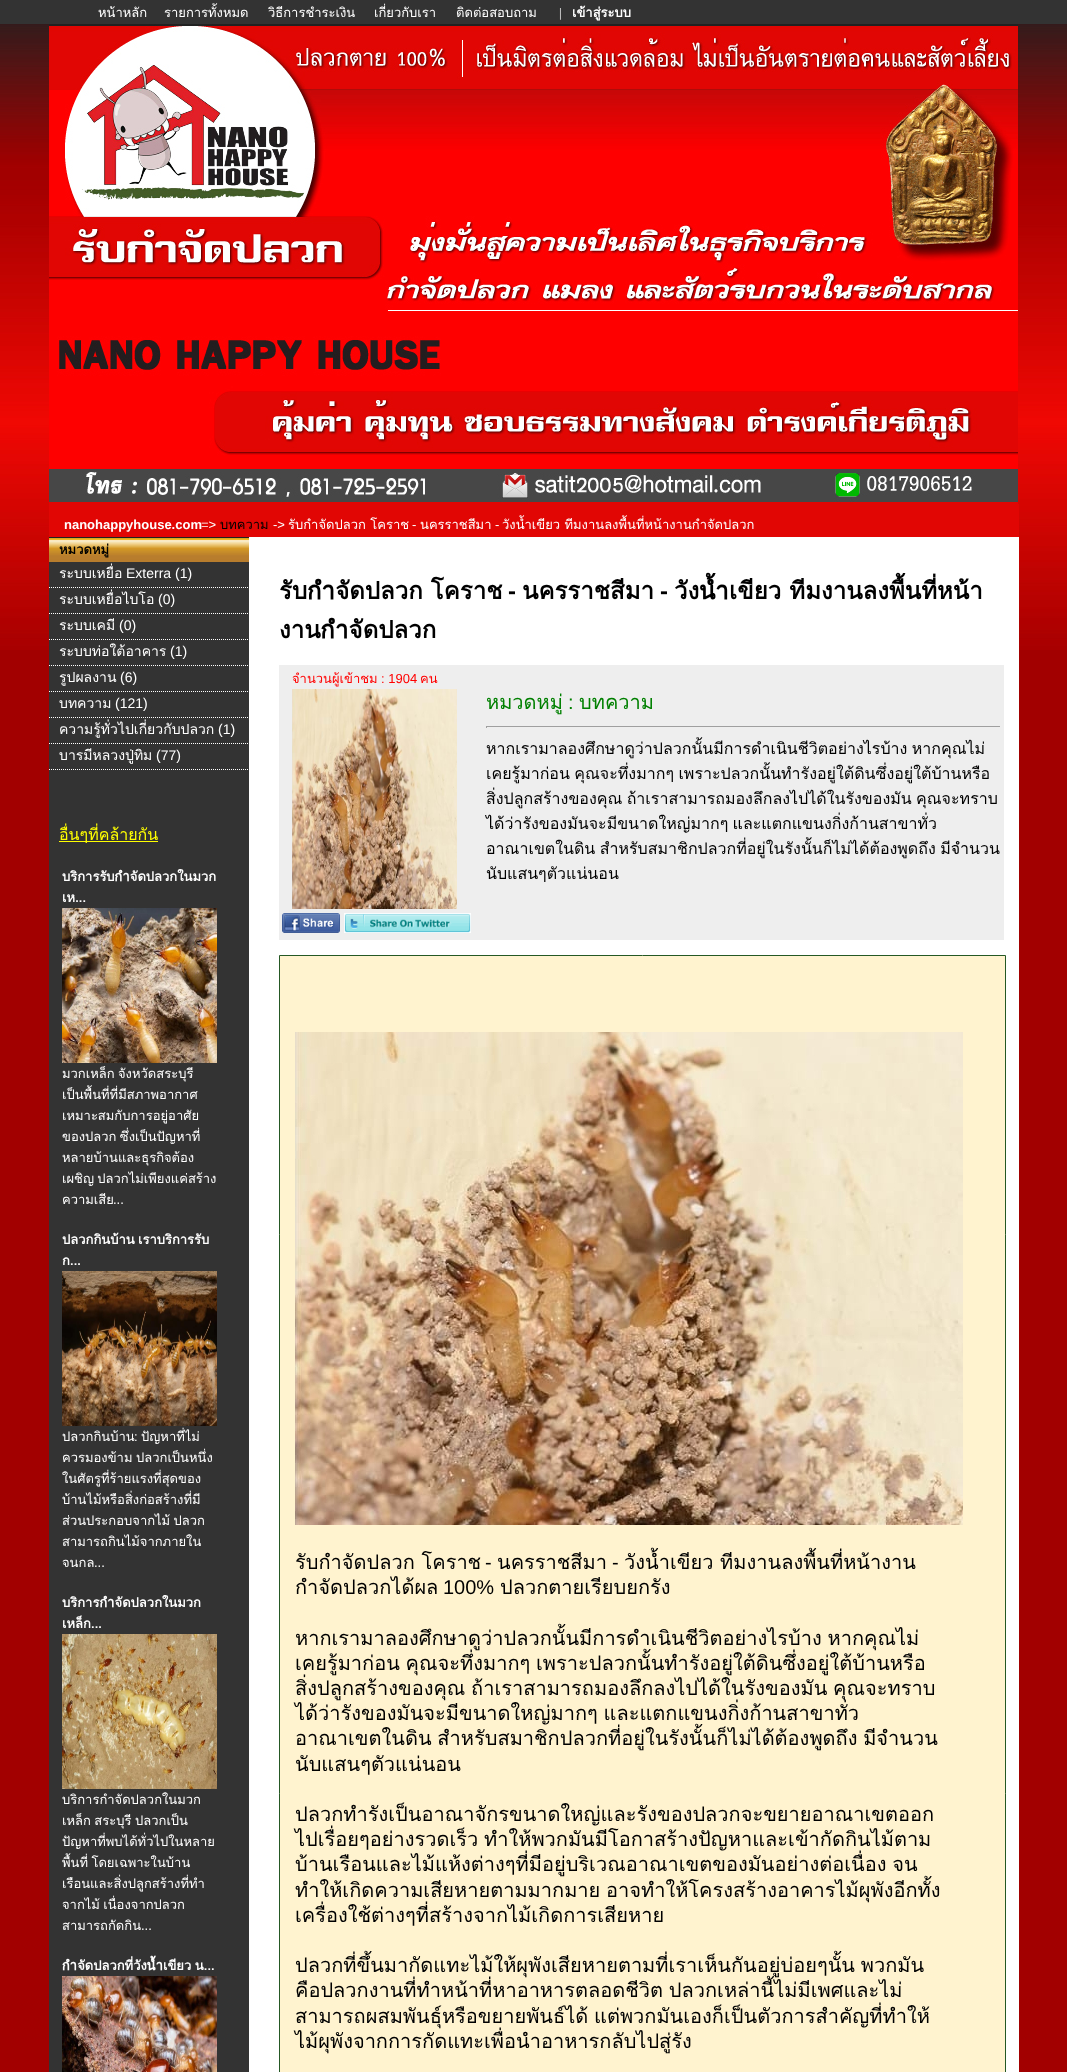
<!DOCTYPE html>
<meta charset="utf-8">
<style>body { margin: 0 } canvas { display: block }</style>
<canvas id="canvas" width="1067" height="2072"></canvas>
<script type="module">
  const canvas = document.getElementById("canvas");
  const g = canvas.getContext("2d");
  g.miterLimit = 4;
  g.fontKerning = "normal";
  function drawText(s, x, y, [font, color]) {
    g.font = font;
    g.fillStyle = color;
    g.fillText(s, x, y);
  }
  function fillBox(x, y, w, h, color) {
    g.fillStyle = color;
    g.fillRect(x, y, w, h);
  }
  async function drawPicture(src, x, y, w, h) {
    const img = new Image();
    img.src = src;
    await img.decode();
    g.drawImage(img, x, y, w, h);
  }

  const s1 = ["13px Loma", "#FFFFFF"];
  const s2 = ["13px Liberation Serif", "#FFFFFF"];
  const s3 = ["bold 13px Loma", "#FFFFFF"];
  const s4 = ["bold 13px Liberation Sans", "#FFFFFF"];
  const s5 = ["13px Liberation Sans", "#FFFFFF"];
  const s6 = ["13px Loma", "#000000"];
  const s7 = ["bold 13px Loma", "#000000"];
  const s8 = ["14px Loma", "#FFFFFF"];
  const s9 = ["14px Liberation Sans", "#FFFFFF"];
  const s10 = ["16px Loma", "#FFFF00"];
  const s11 = ["bold 24px Loma", "#000000"];
  const s12 = ["bold 24px Liberation Sans", "#000000"];
  const s13 = ["13px Loma", "#FF0000"];
  const s14 = ["13px Liberation Sans", "#FF0000"];
  const s15 = ["20px Loma", "#008000"];
  const s16 = ["20px Liberation Sans", "#008000"];
  const s17 = ["16px Loma", "#000000"];
  const s18 = ["20px Loma", "#000000"];
  const s19 = ["20px Liberation Sans", "#000000"];

  fillBox(0, 0, 1067, 2072, "#A20000");
  await drawPicture("pic1.png", 0, 24, 1067, 626);
  fillBox(0, 0, 1067, 24, "#333333");
  drawText("หน้าหลัก", 98, 17, s1);
  drawText("รายการทั้งหมด", 164, 17, s1);
  drawText("วิธีการชำระเงิน", 268, 17, s1);
  drawText("เกี่ยวกับเรา", 374, 17, s1);
  drawText("ติดต่อสอบถาม", 456, 17, s1);
  drawText("|", 559, 17, s2);
  drawText("เข้าสู่ระบบ", 572, 17, s3);
  await drawPicture("pic2.png", 49, 24, 969, 480);
  fillBox(249, 537, 770, 1535, "#FFFFFF");
  fillBox(49, 504, 970, 33, "#E10604");
  drawText("nanohappyhouse.com", 64, 529, s4);
  drawText("=>", 201, 529, s5);
  drawText("บทความ", 220, 529, s6);
  drawText("->", 273, 529, s5);
  drawText("รับกำจัดปลวก โคราช", 288, 529, s1);
  drawText("-", 412, 529, s5);
  drawText("นครราชสีมา", 420, 529, s1);
  drawText("-", 495, 529, s5);
  drawText("วังน้ำเขียว ทีมงานลงพื้นที่หน้างานกำจัดปลวก", 502, 529, s1);
  fillBox(49, 562, 200, 1510, "#333333");
  await drawPicture("pic3.png", 49, 537, 200, 25);
  drawText("หมวดหมู่", 59, 554, s7);
  drawText("ระบบเหยื่อ", 59, 578, s8);
  drawText("Exterra (1)", 126, 578, s9);
  g.beginPath();
  g.moveTo(49, 587.5);
  g.lineTo(249, 587.5);
  g.strokeStyle = "#FFFFFF";
  g.setLineDash([1, 1]);
  g.stroke();
  drawText("ระบบเหยื่อไบโอ", 59, 604, s8);
  drawText("(0)", 158, 604, s9);
  g.beginPath();
  g.moveTo(49, 613.5);
  g.lineTo(249, 613.5);
  g.stroke();
  drawText("ระบบเคมี", 59, 630, s8);
  drawText("(0)", 119, 630, s9);
  g.beginPath();
  g.moveTo(49, 639.5);
  g.lineTo(249, 639.5);
  g.stroke();
  drawText("ระบบท่อใต้อาคาร", 59, 656, s8);
  drawText("(1)", 170, 656, s9);
  g.beginPath();
  g.moveTo(49, 665.5);
  g.lineTo(249, 665.5);
  g.stroke();
  drawText("รูปผลงาน", 59, 682, s8);
  drawText("(6)", 120, 682, s9);
  g.beginPath();
  g.moveTo(49, 691.5);
  g.lineTo(249, 691.5);
  g.stroke();
  drawText("บทความ", 59, 708, s8);
  drawText("(121)", 115, 708, s9);
  g.beginPath();
  g.moveTo(49, 717.5);
  g.lineTo(249, 717.5);
  g.stroke();
  drawText("ความรู้ทั่วไปเกี่ยวกับปลวก", 59, 734, s8);
  drawText("(1)", 218, 734, s9);
  g.beginPath();
  g.moveTo(49, 743.5);
  g.lineTo(249, 743.5);
  g.stroke();
  drawText("บารมีหลวงปู่ทิม", 59, 760, s8);
  drawText("(77)", 156, 760, s9);
  g.beginPath();
  g.moveTo(49, 769.5);
  g.lineTo(249, 769.5);
  g.stroke();
  fillBox(59, 841, 99, 1, "#FFFF00");
  drawText("อื่นๆที่คล้ายกัน", 59, 840, s10);
  drawText("บริการรับกำจัดปลวกในมวก", 62, 881, s3);
  drawText("เห...", 62, 902, s3);
  await drawPicture("pic4.png", 62, 908, 155, 155);
  g.wordSpacing = "-1px";
  drawText("มวกเหล็ก จังหวัดสระบุรี", 62, 1078, s1);
  g.wordSpacing = "0px";
  drawText("เป็นพื้นที่ที่มีสภาพอากาศ", 62, 1099, s1);
  drawText("เหมาะสมกับการอยู่อาศัย", 62, 1120, s1);
  g.wordSpacing = "-1px";
  drawText("ของปลวก ซึ่งเป็นปัญหาที่", 62, 1141, s1);
  g.wordSpacing = "0px";
  drawText("หลายบ้านและธุรกิจต้อง", 62, 1162, s1);
  g.wordSpacing = "-1px";
  drawText("เผชิญ ปลวกไม่เพียงแค่สร้าง", 62, 1183, s1);
  g.wordSpacing = "0px";
  drawText("ความเสีย", 62, 1204, s1);
  drawText("...", 113, 1204, s5);
  g.wordSpacing = "-1px";
  drawText("ปลวกกินบ้าน เราบริการรับ", 62, 1244, s3);
  g.wordSpacing = "0px";
  drawText("ก...", 62, 1265, s3);
  await drawPicture("pic5.png", 62, 1271, 155, 155);
  drawText("ปลวกกินบ้าน", 62, 1441, s1);
  drawText(":", 134, 1441, s5);
  drawText("ปัญหาที่ไม่", 141, 1441, s1);
  drawText("ควรมองข้าม", 62, 1462, s1);
  drawText("ปลวกเป็นหนึ่ง", 136, 1462, s1);
  drawText("ในศัตรูที่ร้ายแรงที่สุดของ", 62, 1483, s1);
  drawText("บ้านไม้หรือสิ่งก่อสร้างที่มี", 62, 1504, s1);
  g.wordSpacing = "-1px";
  drawText("ส่วนประกอบจากไม้ ปลวก", 62, 1525, s1);
  g.wordSpacing = "0px";
  drawText("สามารถกินไม้จากภายใน", 62, 1546, s1);
  drawText("จนกล", 62, 1567, s1);
  drawText("...", 94, 1567, s5);
  drawText("บริการกำจัดปลวกในมวก", 62, 1607, s3);
  drawText("เหล็ก...", 62, 1628, s3);
  await drawPicture("pic6.png", 62, 1634, 155, 155);
  drawText("บริการกำจัดปลวกในมวก", 62, 1804, s1);
  g.wordSpacing = "-1px";
  drawText("เหล็ก สระบุรี", 62, 1825, s1);
  g.wordSpacing = "0px";
  drawText("ปลวกเป็น", 135, 1825, s1);
  drawText("ปัญหาที่พบได้ทั่วไปในหลาย", 62, 1846, s1);
  g.wordSpacing = "-1px";
  drawText("พื้นที่ โดยเฉพาะในบ้าน", 62, 1867, s1);
  g.wordSpacing = "0px";
  drawText("เรือนและสิ่งปลูกสร้างที่ทำ", 62, 1888, s1);
  g.wordSpacing = "-1px";
  drawText("จากไม้ เนื่องจากปลวก", 62, 1909, s1);
  g.wordSpacing = "0px";
  drawText("สามารถกัดกิน", 62, 1930, s1);
  drawText("...", 141, 1930, s5);
  g.wordSpacing = "-1px";
  drawText("กำจัดปลวกที่วังน้ำเขียว น...", 62, 1970, s3);
  await drawPicture("pic7.png", 62, 1976, 155, 96);
  g.wordSpacing = "0px";
  drawText("รับกำจัดปลวก โคราช", 279, 599, s11);
  drawText("-", 508, 599, s12);
  drawText("นครราชสีมา", 522, 599, s11);
  drawText("-", 660, 599, s12);
  drawText("วังน้ำเขียว ทีมงานลงพื้นที่หน้า", 674, 599, s11);
  drawText("งานกำจัดปลวก", 279, 638, s11);
  fillBox(279, 665, 725, 275, "#EEEEEE");
  drawText("จำนวนผู้เข้าชม", 292, 683, s13);
  drawText(": 1904", 381, 683, s14);
  drawText("คน", 420, 683, s13);
  await drawPicture("pic8.png", 292, 689, 165, 220);
  drawText("หมวดหมู่", 486, 709, s15);
  drawText(":", 568, 709, s16);
  drawText("บทความ", 579, 709, s15);
  fillBox(486, 726, 515, 1, "#9F9F9F");
  fillBox(1000, 726, 1, 2, "#EEEEEE");
  fillBox(486, 726, 1, 2, "#9F9F9F");
  g.wordSpacing = "-1px";
  drawText("หากเรามาลองศึกษาดูว่าปลวกนั้นมีการดำเนินชีวิตอย่างไรบ้าง หากคุณไม่", 486, 754, s17);
  drawText("เคยรู้มาก่อน คุณจะทึ่งมากๆ เพราะปลวกนั้นทำรังอยู่ใต้ดินซึ่งอยู่ใต้บ้านหรือ", 486, 779, s17);
  drawText("สิ่งปลูกสร้างของคุณ ถ้าเราสามารถมองลึกลงไปได้ในรังของมัน คุณจะทราบ", 486, 804, s17);
  drawText("ได้ว่ารังของมันจะมีขนาดใหญ่มากๆ และแตกแขนงกิ่งก้านสาขาทั่ว", 486, 829, s17);
  drawText("อาณาเขตในดิน สำหรับสมาชิกปลวกที่อยู่ในรังนั้นก็ไม่ได้ต้องพูดถึง มีจำนวน", 486, 854, s17);
  g.wordSpacing = "0px";
  drawText("นับแสนๆตัวแน่นอน", 486, 879, s17);
  await drawPicture("pic9.png", 282, 913, 58, 20);
  await drawPicture("pic10.png", 344, 913, 127, 20);
  g.fillStyle = "#FFF3CF";
  g.beginPath();
  g.rect(279.5, 955.5, 726, 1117);
  g.fill();
  g.strokeStyle = "#255824";
  g.setLineDash([]);
  g.stroke();
  await drawPicture("pic11.png", 295, 1032, 668, 493);
  drawText("รับกำจัดปลวก โคราช", 295, 1569, s18);
  drawText("-", 485, 1569, s19);
  drawText("นครราชสีมา", 497, 1569, s18);
  drawText("-", 612, 1569, s19);
  drawText("วังน้ำเขียว ทีมงานลงพื้นที่หน้างาน", 624, 1569, s18);
  drawText("กำจัดปลวกได้ผล", 295, 1594, s18);
  drawText("100%", 443, 1594, s19);
  drawText("ปลวกตายเรียบยกรัง", 500, 1594, s18);
  g.wordSpacing = "-1px";
  drawText("หากเรามาลองศึกษาดูว่าปลวกนั้นมีการดำเนินชีวิตอย่างไรบ้าง หากคุณไม่", 295, 1645, s18);
  drawText("เคยรู้มาก่อน คุณจะทึ่งมากๆ เพราะปลวกนั้นทำรังอยู่ใต้ดินซึ่งอยู่ใต้บ้านหรือ", 295, 1670, s18);
  drawText("สิ่งปลูกสร้างของคุณ ถ้าเราสามารถมองลึกลงไปได้ในรังของมัน คุณจะทราบ", 295, 1695, s18);
  drawText("ได้ว่ารังของมันจะมีขนาดใหญ่มากๆ และแตกแขนงกิ่งก้านสาขาทั่ว", 295, 1720, s18);
  drawText("อาณาเขตในดิน สำหรับสมาชิกปลวกที่อยู่ในรังนั้นก็ไม่ได้ต้องพูดถึง มีจำนวน", 295, 1745, s18);
  g.wordSpacing = "0px";
  drawText("นับแสนๆตัวแน่นอน", 295, 1771, s18);
  drawText("ปลวกทำรังเป็นอาณาจักรขนาดใหญ่และรังของปลวกจะขยายอาณาเขตออก", 295, 1821, s18);
  g.wordSpacing = "-1px";
  drawText("ไปเรื่อยๆอย่างรวดเร็ว ทำให้พวกมันมีโอกาสร้างปัญหาและเข้ากัดกินไม้ตาม", 295, 1846, s18);
  drawText("บ้านเรือนและไม้แห้งต่างๆที่มีอยู่บริเวณอาณาเขตของมันอย่างต่อเนื่อง จน", 295, 1871, s18);
  drawText("ทำให้เกิดความเสียหายตามมากมาย อาจทำให้โครงสร้างอาคารไม้ผุพังอีกทั้ง", 295, 1897, s18);
  g.wordSpacing = "0px";
  drawText("เครื่องใช้ต่างๆที่สร้างจากไม้เกิดการเสียหาย", 295, 1922, s18);
  g.wordSpacing = "-1px";
  drawText("ปลวกที่ขึ้นมากัดแทะไม้ให้ผุพังเสียหายตามที่เราเห็นกันอยู่บ่อยๆนั้น พวกมัน", 295, 1972, s18);
  drawText("คือปลวกงานที่ทำหน้าที่หาอาหารตลอดชีวิต ปลวกเหล่านี้ไม่มีเพศและไม่", 295, 1997, s18);
  drawText("สามารถผสมพันธุ์หรือขยายพันธ์ได้ แต่พวกมันเองก็เป็นตัวการสำคัญที่ทำให้", 295, 2023, s18);
  g.wordSpacing = "0px";
  drawText("ไม้ผุพังจากการกัดแทะเพื่อนำอาหารกลับไปสู่รัง", 295, 2048, s18);
</script>
